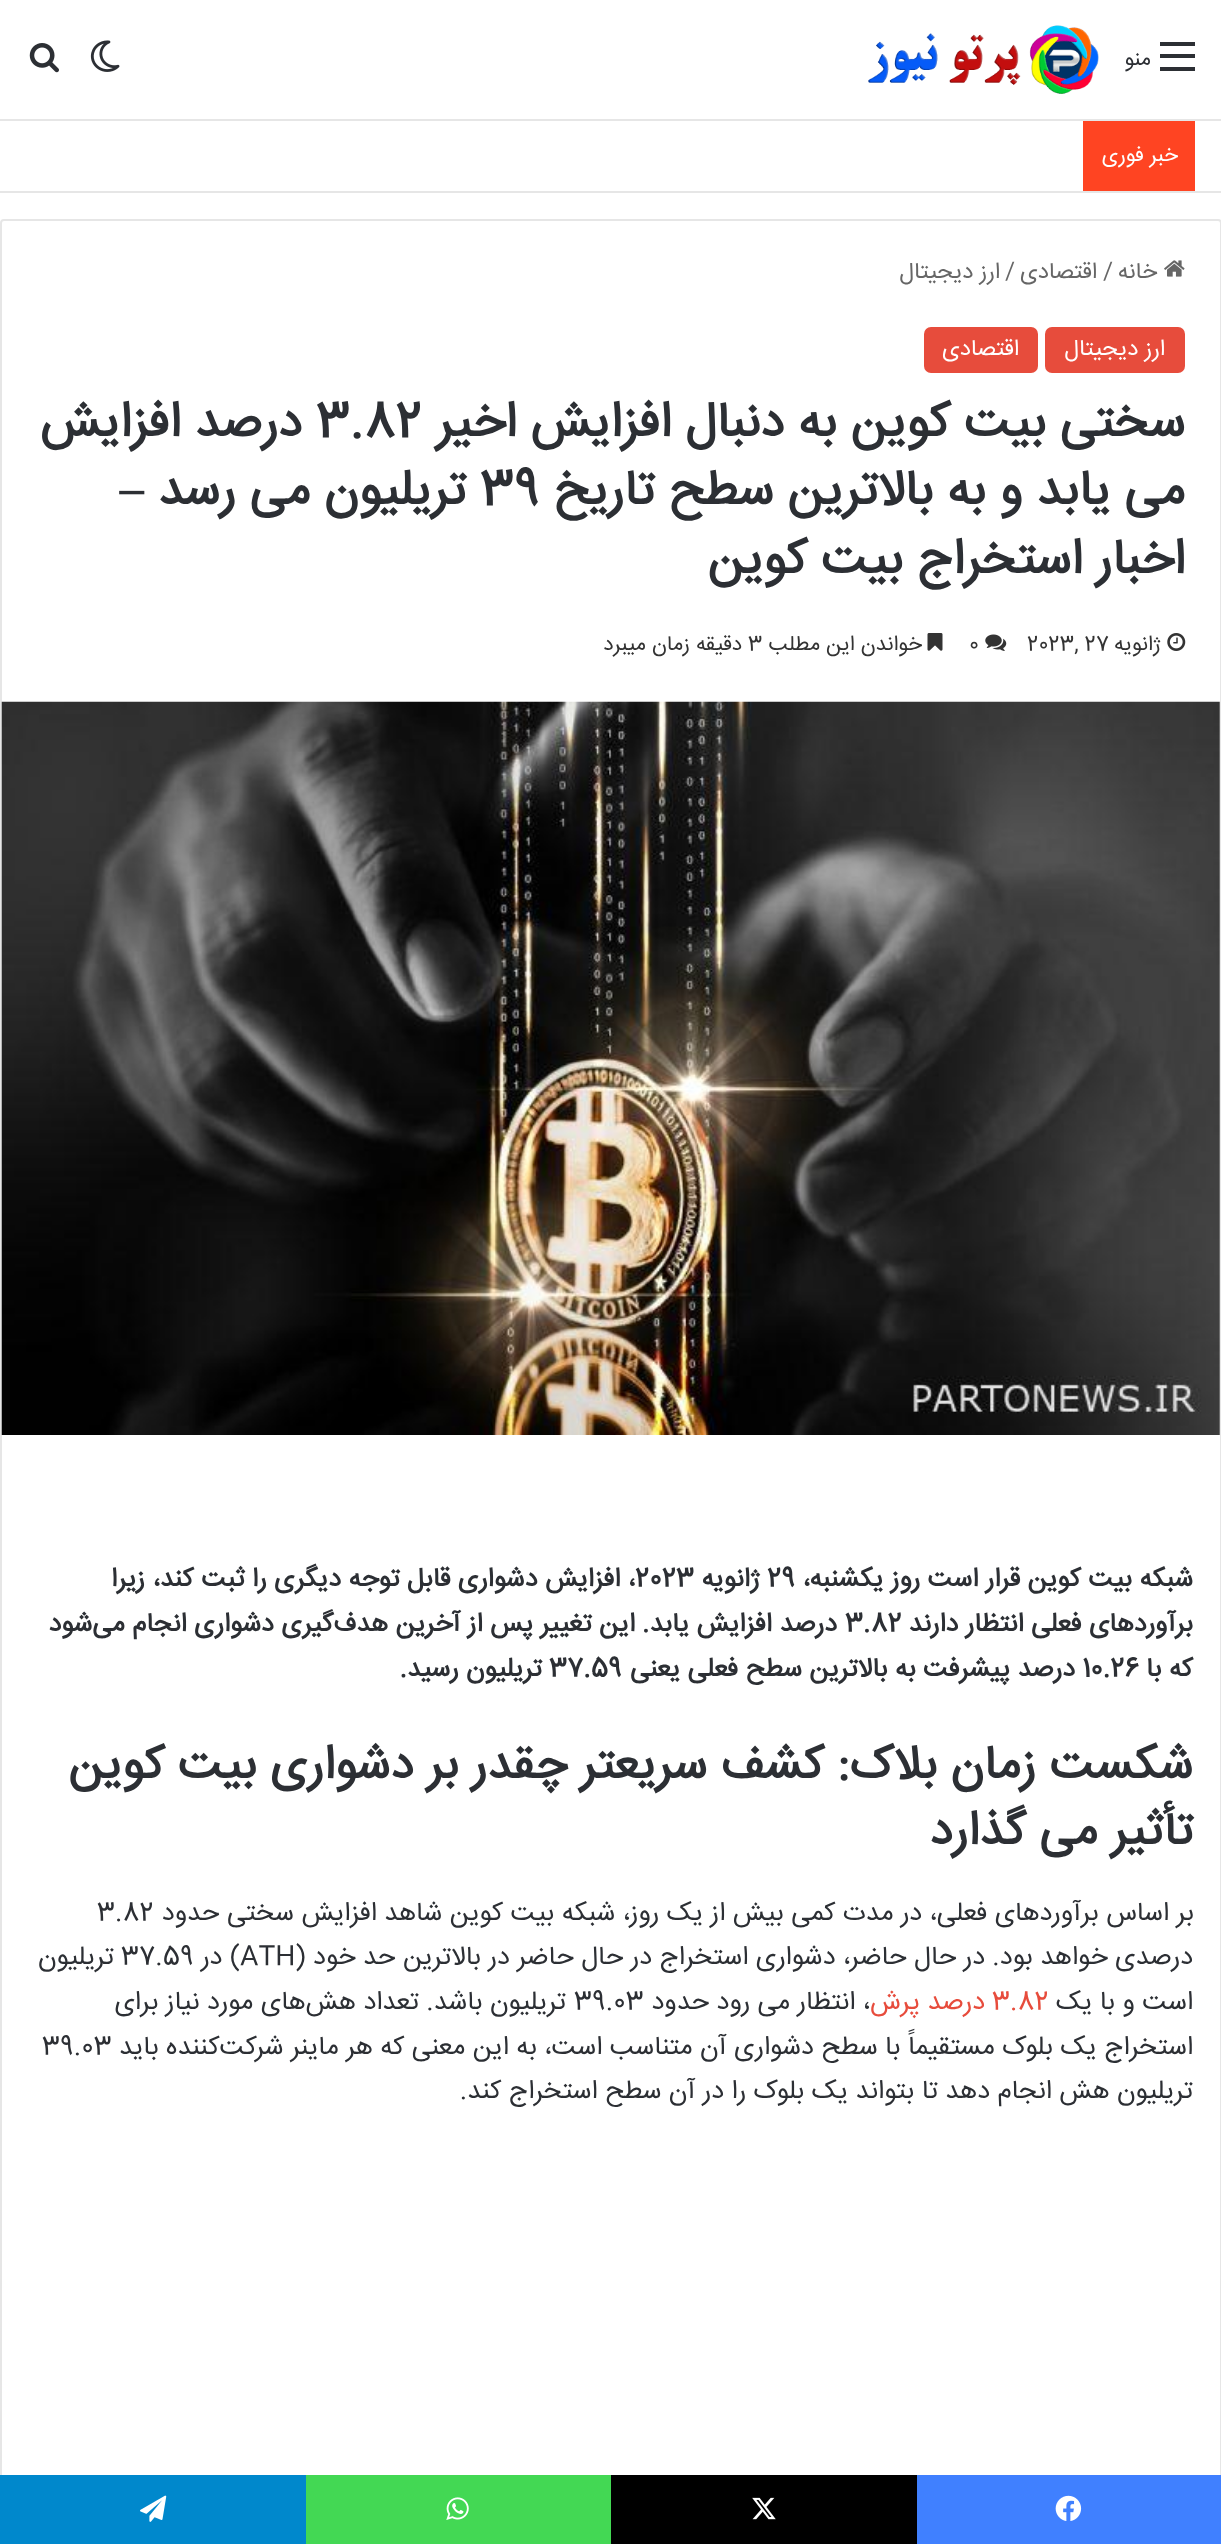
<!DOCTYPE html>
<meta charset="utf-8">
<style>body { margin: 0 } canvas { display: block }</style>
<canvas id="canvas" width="1221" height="2544"></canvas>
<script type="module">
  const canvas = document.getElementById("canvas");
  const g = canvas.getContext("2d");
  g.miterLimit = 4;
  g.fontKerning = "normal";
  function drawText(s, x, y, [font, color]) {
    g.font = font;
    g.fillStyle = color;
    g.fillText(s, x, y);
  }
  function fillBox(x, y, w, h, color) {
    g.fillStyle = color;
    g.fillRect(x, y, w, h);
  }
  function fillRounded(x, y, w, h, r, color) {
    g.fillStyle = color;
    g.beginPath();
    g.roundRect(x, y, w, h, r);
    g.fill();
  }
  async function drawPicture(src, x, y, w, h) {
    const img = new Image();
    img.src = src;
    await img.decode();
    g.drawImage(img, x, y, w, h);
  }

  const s1 = ["21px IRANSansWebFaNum", "#2C2F34"];
  const s2 = ["21px IRANSansWebFaNum", "#FFFFFF"];
  const s3 = ["22.75px IRANSansWebFaNum", "#666666"];
  const s4 = ["22.75px IRANSansWebFaNum", "#FFFFFF"];
  const s5 = ["bold 49px IRANSansWebFaNum", "#2C2F34"];
  const s6 = ["bold 49px Liberation Serif", "#2C2F34"];
  const s7 = ["21px IRANSansWebFaNum", "#333333"];
  const s8 = ["bold 26.25px IRANSansWebFaNum", "#2C2F34"];
  const s9 = ["bold 47.25px IRANSansWebFaNum", "#2C2F34"];
  const s10 = ["26.25px IRANSansWebFaNum", "#2C2F34"];
  const s11 = ["26.25px IRANSansWebFaNum", "#E74C3C"];

  fillBox(0, 0, 1221, 2544, "#FFFFFF");
  fillBox(1160, 54, 35, 4, "#2C2F34");
  fillBox(1160, 42, 35, 4, "#2C2F34");
  fillBox(1160, 67, 35, 4, "#2C2F34");
  g.direction = "rtl";
  drawText("منو", 1151, 65, s1);
  await drawPicture("pic1.png", 868, 25, 231, 69);
  await drawPicture("pic2.png", 90, 40, 30, 32);
  await drawPicture("pic3.png", 29, 43, 30, 30);
  fillBox(0, 119, 1221, 2, "#E6E6E6");
  fillBox(0, 191, 1221, 2, "#E6E6E6");
  fillBox(1083, 121, 112, 70, "#FF4422");
  drawText("خبر فوری", 1178, 161, s2);
  g.beginPath();
  g.roundRect(1, 220, 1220, 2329, 3);
  g.strokeStyle = "#E6E6E6";
  g.lineWidth = 2;
  g.stroke();
  await drawPicture("pic4.png", 1164, 260, 21, 17);
  drawText("خانه", 1157, 278, s3);
  g.direction = "ltr";
  drawText("/", 1103, 278, s3);
  g.direction = "rtl";
  drawText("اقتصادی", 1097, 278, s3);
  g.direction = "ltr";
  drawText("/", 1005, 278, s3);
  g.direction = "rtl";
  drawText("ارز دیجیتال", 1000, 278, s3);
  fillRounded(1045, 327, 140, 46, 7, "#E74C3C");
  drawText("ارز دیجیتال", 1165, 355, s4);
  fillRounded(924, 327, 114, 46, 7, "#E74C3C");
  drawText("اقتصادی", 1019, 355, s4);
  drawText("سختی بیت کوین به دنبال افزایش اخیر", 1185, 436, s5);
  g.direction = "ltr";
  drawText("3.82", 316, 436, s5);
  g.direction = "rtl";
  drawText("درصد افزایش", 302, 436, s5);
  drawText("می یابد و به بالاترین سطح تاریخ", 1185, 504, s5);
  g.direction = "ltr";
  drawText("39", 480, 504, s5);
  g.direction = "rtl";
  drawText("تریلیون می رسد", 466, 504, s5);
  drawText("–", 144, 504, s6);
  drawText("اخبار استخراج بیت کوین", 1185, 573, s5);
  await drawPicture("pic5.png", 1167, 633, 19, 18);
  drawText("ژانویه", 1161, 650, s7);
  g.direction = "ltr";
  drawText("2023, 27", 1027, 650, s7);
  await drawPicture("pic6.png", 985, 634, 22, 17);
  drawText("0", 969, 650, s7);
  await drawPicture("pic7.png", 927, 633, 16, 18);
  g.direction = "rtl";
  drawText("خواندن این مطلب", 922, 650, s7);
  g.direction = "ltr";
  drawText("3", 748, 650, s7);
  g.direction = "rtl";
  drawText("دقیقه زمان میبرد", 742, 650, s7);
  await drawPicture("pic8.png", 1, 701, 1219, 734);
  drawText("شبکه بیت کوین قرار است روز یکشنبه،", 1193, 1586, s8);
  g.direction = "ltr";
  drawText("29", 767, 1586, s8);
  g.direction = "rtl";
  drawText("ژانویه", 760, 1586, s8);
  g.direction = "ltr";
  drawText("2023", 635, 1586, s8);
  g.direction = "rtl";
  drawText("، افزایش دشواری قابل توجه دیگری را ثبت کند، زیرا", 635, 1586, s8);
  drawText("برآوردهای فعلی انتظار دارند", 1193, 1631, s8);
  g.direction = "ltr";
  drawText("3.82", 845, 1631, s8);
  g.direction = "rtl";
  drawText("درصد افزایش یابد.", 837, 1631, s8);
  drawText("این تغییر پس از آخرین هدف‌گیری دشواری انجام می‌شود", 635, 1631, s8);
  drawText("که با", 1193, 1676, s8);
  g.direction = "ltr";
  drawText("10.26", 1082, 1676, s8);
  g.direction = "rtl";
  drawText("درصد پیشرفت به بالاترین سطح فعلی یعنی", 1075, 1676, s8);
  g.direction = "ltr";
  drawText("37.59", 549, 1676, s8);
  g.direction = "rtl";
  drawText("تریلیون رسید.", 542, 1676, s8);
  drawText("شکست زمان بلاک: کشف سریعتر چقدر بر دشواری بیت کوین", 1193, 1778, s9);
  drawText("تأثیر می گذارد", 1193, 1844, s9);
  drawText("بر اساس برآوردهای فعلی، در مدت کمی بیش از یک روز، شبکه بیت کوین شاهد افزایش سختی حدود", 1194, 1920, s10);
  g.direction = "ltr";
  drawText("3.82", 97, 1920, s10);
  g.direction = "rtl";
  drawText("درصدی خواهد بود.", 1193, 1964, s10);
  drawText("در حال حاضر، دشواری استخراج در حال حاضر در بالاترین حد خود (", 985, 1964, s10);
  g.direction = "ltr";
  drawText("ATH", 240, 1964, s10);
  g.direction = "rtl";
  drawText(") در", 240, 1964, s10);
  g.direction = "ltr";
  drawText("37.59", 121, 1964, s10);
  g.direction = "rtl";
  drawText("تریلیون", 114, 1964, s10);
  drawText("است و با یک", 1193, 2009, s10);
  g.direction = "ltr";
  drawText("3.82", 992, 2009, s11);
  g.direction = "rtl";
  drawText("درصد پرش", 985, 2009, s11);
  drawText("، انتظار می رود حدود", 870, 2009, s10);
  g.direction = "ltr";
  drawText("39.03", 574, 2009, s10);
  g.direction = "rtl";
  drawText("تریلیون باشد.", 566, 2009, s10);
  drawText("تعداد هش‌های مورد نیاز برای", 419, 2009, s10);
  drawText("استخراج یک بلوک مستقیماً با سطح دشواری آن متناسب است، به این معنی که هر ماینر شرکت‌کننده باید", 1193, 2054, s10);
  g.direction = "ltr";
  drawText("39.03", 42, 2054, s10);
  g.direction = "rtl";
  drawText("تریلیون هش انجام دهد تا بتواند یک بلوک را در آن سطح استخراج کند.", 1193, 2098, s10);
  fillBox(917, 2475, 304, 69, "#4080FF");
  await drawPicture("pic9.png", 1055, 2495, 27, 26);
  fillBox(611, 2475, 306, 69, "#000000");
  await drawPicture("pic10.png", 752, 2497, 24, 23);
  fillBox(306, 2475, 305, 69, "#43D854");
  await drawPicture("pic11.png", 446, 2497, 23, 23);
  fillBox(0, 2475, 306, 69, "#0088CC");
  await drawPicture("pic12.png", 140, 2495, 27, 27);
</script>
